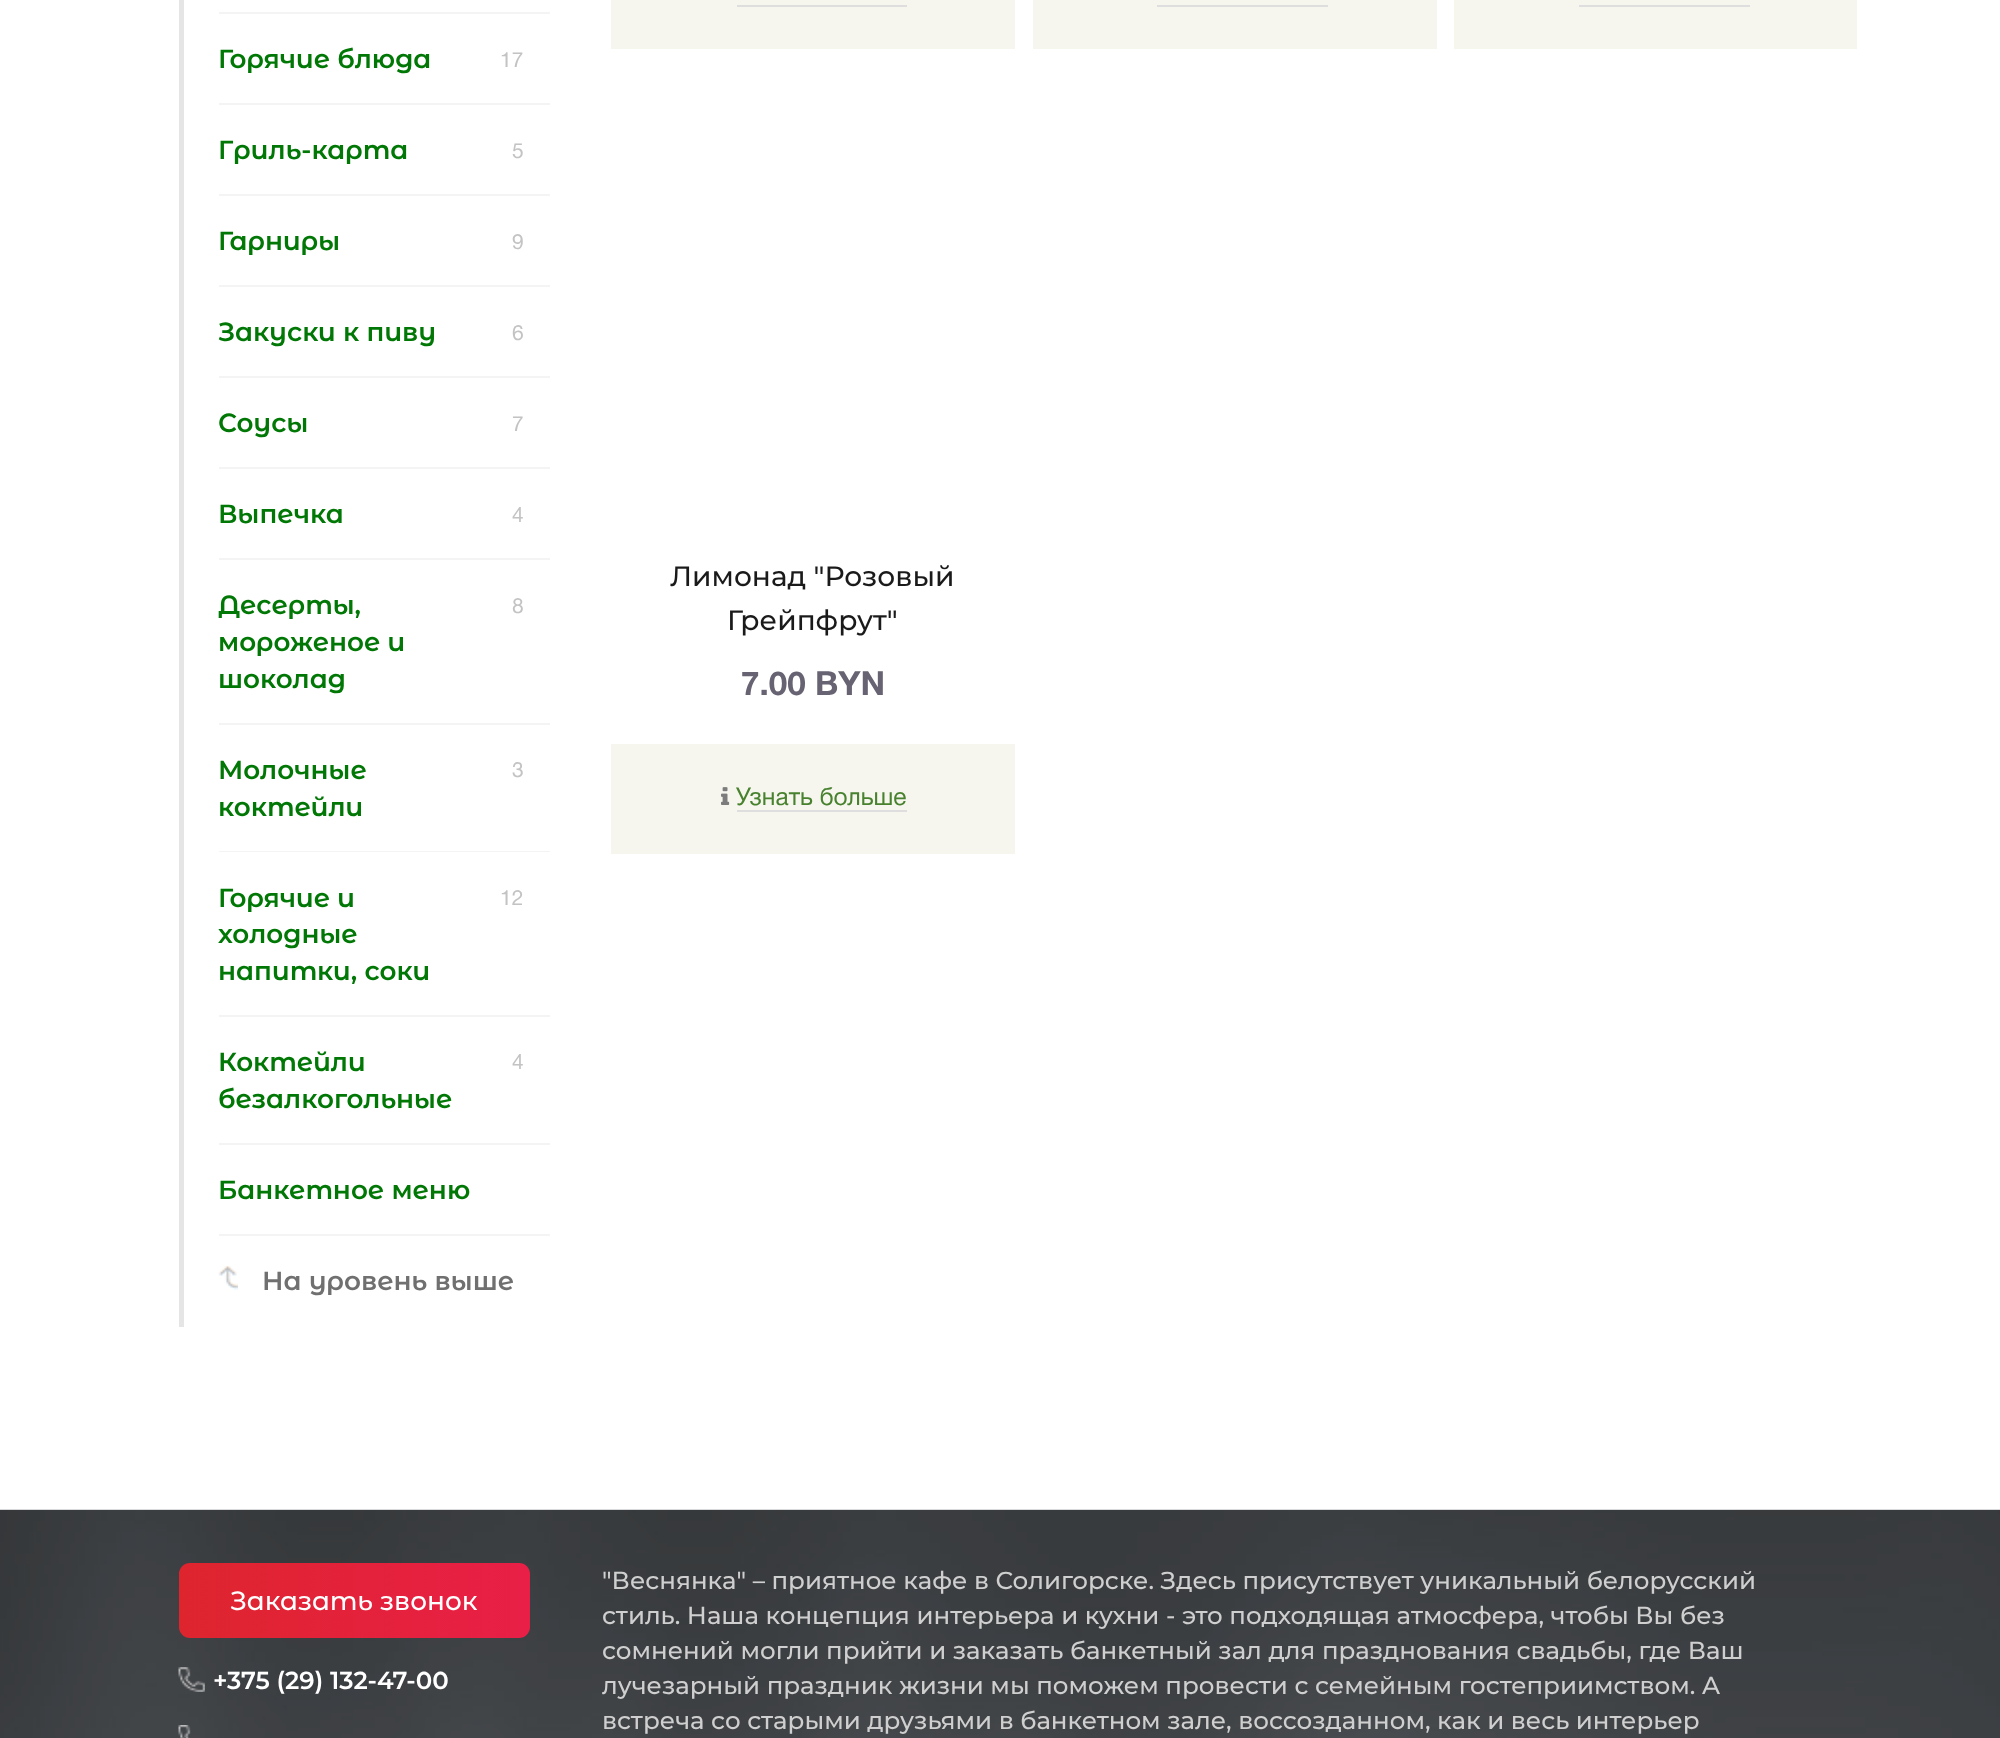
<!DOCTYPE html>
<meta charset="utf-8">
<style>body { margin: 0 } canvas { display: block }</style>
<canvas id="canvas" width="2000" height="1738"></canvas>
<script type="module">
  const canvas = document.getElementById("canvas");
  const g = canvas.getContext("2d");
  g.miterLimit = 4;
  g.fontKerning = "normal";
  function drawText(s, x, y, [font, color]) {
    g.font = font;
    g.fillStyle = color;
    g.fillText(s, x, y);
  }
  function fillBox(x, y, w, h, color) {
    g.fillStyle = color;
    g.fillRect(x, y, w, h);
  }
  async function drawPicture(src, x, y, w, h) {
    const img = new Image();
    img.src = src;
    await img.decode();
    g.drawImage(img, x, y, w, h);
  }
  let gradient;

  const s1 = ["600 26.25px Montserrat Alternates", "#017705"];
  const s2 = ["21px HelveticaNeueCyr", "#C3C3C3"];
  const s3 = ["600 26.25px Montserrat Alternates", "#707070"];
  const s4 = ["500 28px Montserrat", "#1A1A1A"];
  const s5 = ["bold 33.25px HelveticaNeueCyr", "#676372"];
  const s6 = ["24.5px HelveticaNeueCyr", "#48822E"];
  const s7 = ["500 26.25px Montserrat Alternates", "#FFFFFF"];
  const s8 = ["600 24.5px Montserrat Alternates", "#FFFFFF"];
  const s9 = ["500 24.5px Montserrat", "#CFCFCF"];

  fillBox(0, 0, 2000, 1738, "#FFFFFF");
  fillBox(179, 0, 5, 1327, "#E5E5E5");
  fillBox(219, 12, 331, 2, "#F4F4F4");
  fillBox(219, 103, 331, 2, "#F4F4F4");
  drawText("Горячие блюда", 218, 68, s1);
  drawText("17", 500, 67, s2);
  fillBox(219, 194, 331, 2, "#F4F4F4");
  drawText("Гриль-карта", 218, 159, s1);
  drawText("5", 512, 158, s2);
  fillBox(219, 285, 331, 2, "#F4F4F4");
  drawText("Гарниры", 218, 250, s1);
  drawText("9", 512, 249, s2);
  fillBox(219, 376, 331, 2, "#F4F4F4");
  drawText("Закуски к пиву", 218, 341, s1);
  drawText("6", 512, 340, s2);
  fillBox(219, 467, 331, 2, "#F4F4F4");
  drawText("Соусы", 218, 432, s1);
  drawText("7", 512, 431, s2);
  fillBox(219, 558, 331, 2, "#F4F4F4");
  drawText("Выпечка", 218, 523, s1);
  drawText("4", 512, 522, s2);
  fillBox(219, 723, 331, 2, "#F4F4F4");
  drawText("Десерты,", 218, 614, s1);
  drawText("мороженое и", 218, 651, s1);
  drawText("шоколад", 218, 688, s1);
  drawText("8", 512, 613, s2);
  fillBox(219, 851, 331, 1, "#F4F4F4");
  drawText("Молочные", 218, 779, s1);
  drawText("коктейли", 218, 816, s1);
  drawText("3", 512, 777, s2);
  fillBox(219, 1015, 331, 2, "#F4F4F4");
  drawText("Горячие и", 218, 907, s1);
  drawText("холодные", 218, 943, s1);
  drawText("напитки, соки", 218, 980, s1);
  drawText("12", 500, 905, s2);
  fillBox(219, 1143, 331, 2, "#F4F4F4");
  drawText("Коктейли", 218, 1071, s1);
  drawText("безалкогольные", 218, 1108, s1);
  drawText("4", 512, 1069, s2);
  fillBox(219, 1234, 331, 2, "#F4F4F4");
  drawText("Банкетное меню", 218, 1199, s1);
  await drawPicture("pic1.png", 218, 1265, 20, 25);
  drawText("На уровень выше", 262, 1290, s3);
  fillBox(611, 0, 404, 49, "#F6F6EF");
  fillBox(737, 5, 170, 2, "#DEDEDE");
  fillBox(1033, 0, 404, 49, "#F6F6EF");
  fillBox(1157, 5, 171, 2, "#DEDEDE");
  fillBox(1454, 0, 403, 49, "#F6F6EF");
  fillBox(1579, 5, 171, 2, "#DEDEDE");
  drawText("Лимонад \"Розовый", 670, 586, s4);
  drawText("Грейпфрут\"", 727, 630, s4);
  drawText("7.00 BYN", 741, 695, s5);
  fillBox(611, 744, 404, 110, "#F6F6EF");
  await drawPicture("pic2.png", 721, 787, 9, 18);
  drawText("Узнать больше", 736, 805, s6);
  fillBox(737, 810, 170, 2, "#DEDEDE");
  await drawPicture("pic3.png", 0, 1509, 2000, 229);
  gradient = g.createLinearGradient(179, 1600, 530, 1600);
  gradient.addColorStop(0, "#DE252E");
  gradient.addColorStop(1, "#E91F47");
  g.fillStyle = gradient;
  g.beginPath();
  g.roundRect(179, 1563, 351, 75, 11);
  g.fill();
  drawText("Заказать звонок", 230, 1610, s7);
  await drawPicture("pic4.png", 178, 1667, 27, 25);
  drawText("+375 (29) 132-47-00", 213, 1689, s8);
  await drawPicture("pic5.png", 178, 1725, 13, 13);
  drawText("\"Веснянка\" – приятное кафе в Солигорске. Здесь присутствует уникальный белорусский", 602, 1589, s9);
  drawText("стиль. Наша концепция интерьера и кухни - это подходящая атмосфера, чтобы Вы без", 602, 1624, s9);
  drawText("сомнений могли прийти и заказать банкетный зал для празднования свадьбы, где Ваш", 602, 1659, s9);
  drawText("лучезарный праздник жизни мы поможем провести с семейным гостеприимством. А", 602, 1694, s9);
  drawText("встреча со старыми друзьями в банкетном зале, воссозданном, как и весь интерьер", 602, 1729, s9);
</script>
